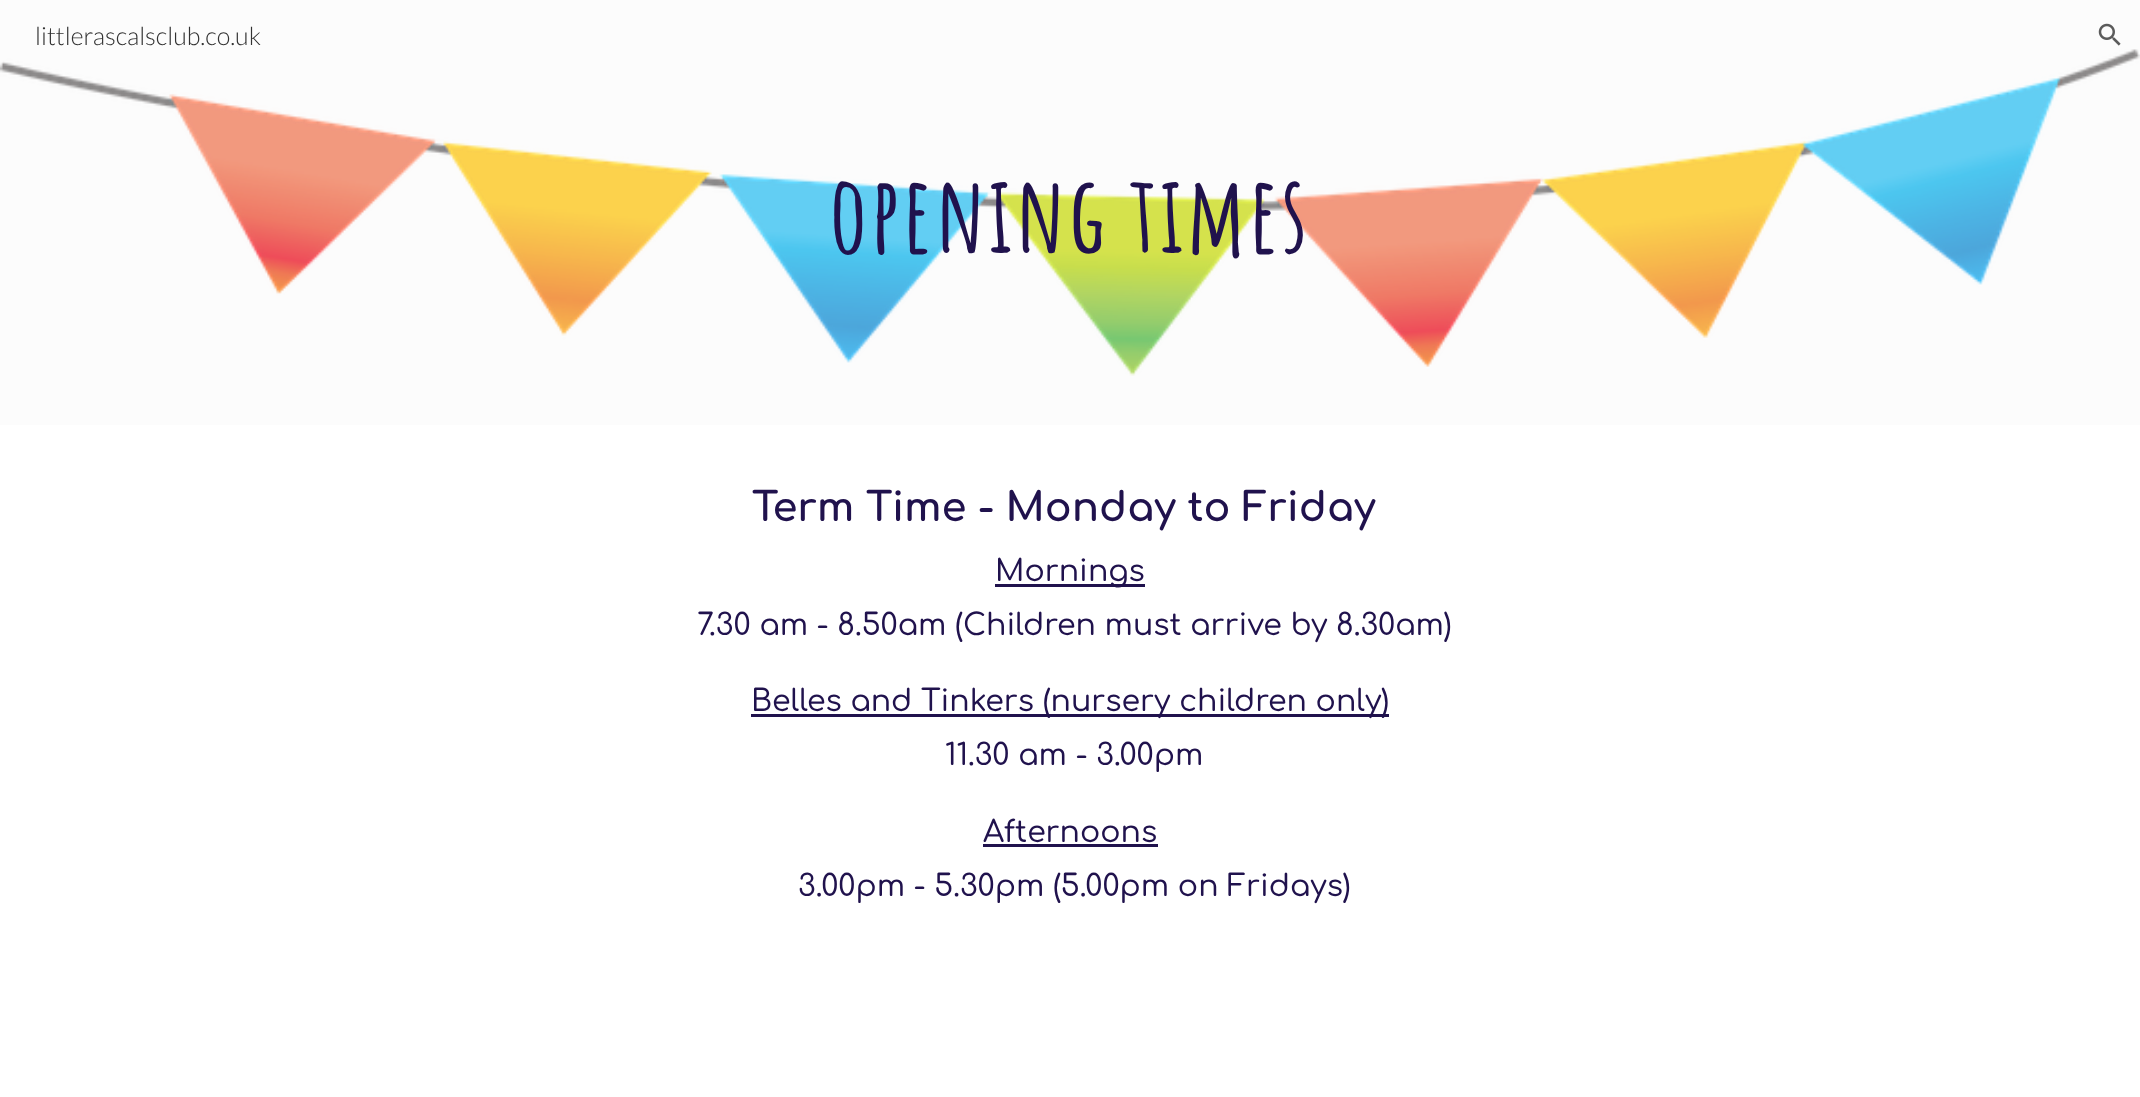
<!DOCTYPE html>
<meta charset="utf-8">
<style>body { margin: 0 } canvas { display: block }</style>
<canvas id="canvas" width="2140" height="1097"></canvas>
<script type="module">
  const canvas = document.getElementById("canvas");
  const g = canvas.getContext("2d");
  g.miterLimit = 4;
  g.fontKerning = "normal";
  function drawText(s, x, y, [font, color]) {
    g.font = font;
    g.fillStyle = color;
    g.fillText(s, x, y);
  }
  function fillBox(x, y, w, h, color) {
    g.fillStyle = color;
    g.fillRect(x, y, w, h);
  }
  async function drawPicture(src, x, y, w, h) {
    const img = new Image();
    img.src = src;
    await img.decode();
    g.drawImage(img, x, y, w, h);
  }

  const s1 = ["300 25px Lato", "#323232"];
  const s2 = ["bold 106.5px Amatic SC", "#20124D"];
  const s3 = ["bold 40px Comfortaa", "#20124D"];
  const s4 = ["500 30px Comfortaa", "#20124D"];

  fillBox(0, 0, 2140, 1097, "#FFFFFF");
  fillBox(0, 0, 2140, 425, "#FCFCFC");
  drawText("littlerascalsclub.co.uk", 35, 45, s1);
  await drawPicture("pic1.png", 2098, 23, 23, 23);
  await drawPicture("pic2.png", 0, 49, 2140, 327);
  g.letterSpacing = "2.5px";
  drawText("opening times", 829, 253, s2);
  g.letterSpacing = "0px";
  drawText("Term Time - Monday to Friday", 752, 521, s3);
  fillBox(995, 584, 150, 3, "#20124D");
  drawText("Mornings", 995, 581, s4);
  drawText("7.30 am - 8.50am (Children must arrive by 8.30am)", 697, 635, s4);
  fillBox(751, 714, 638, 3, "#20124D");
  drawText("Belles and Tinkers (nursery children only)", 751, 711, s4);
  drawText("11.30 am - 3.00pm", 945, 765, s4);
  drawText("Afternoons", 983, 842, s4);
  fillBox(983, 844, 175, 3, "#20124D");
  drawText("3.00pm - 5.30pm (5.00pm on Fridays)", 798, 896, s4);
</script>
